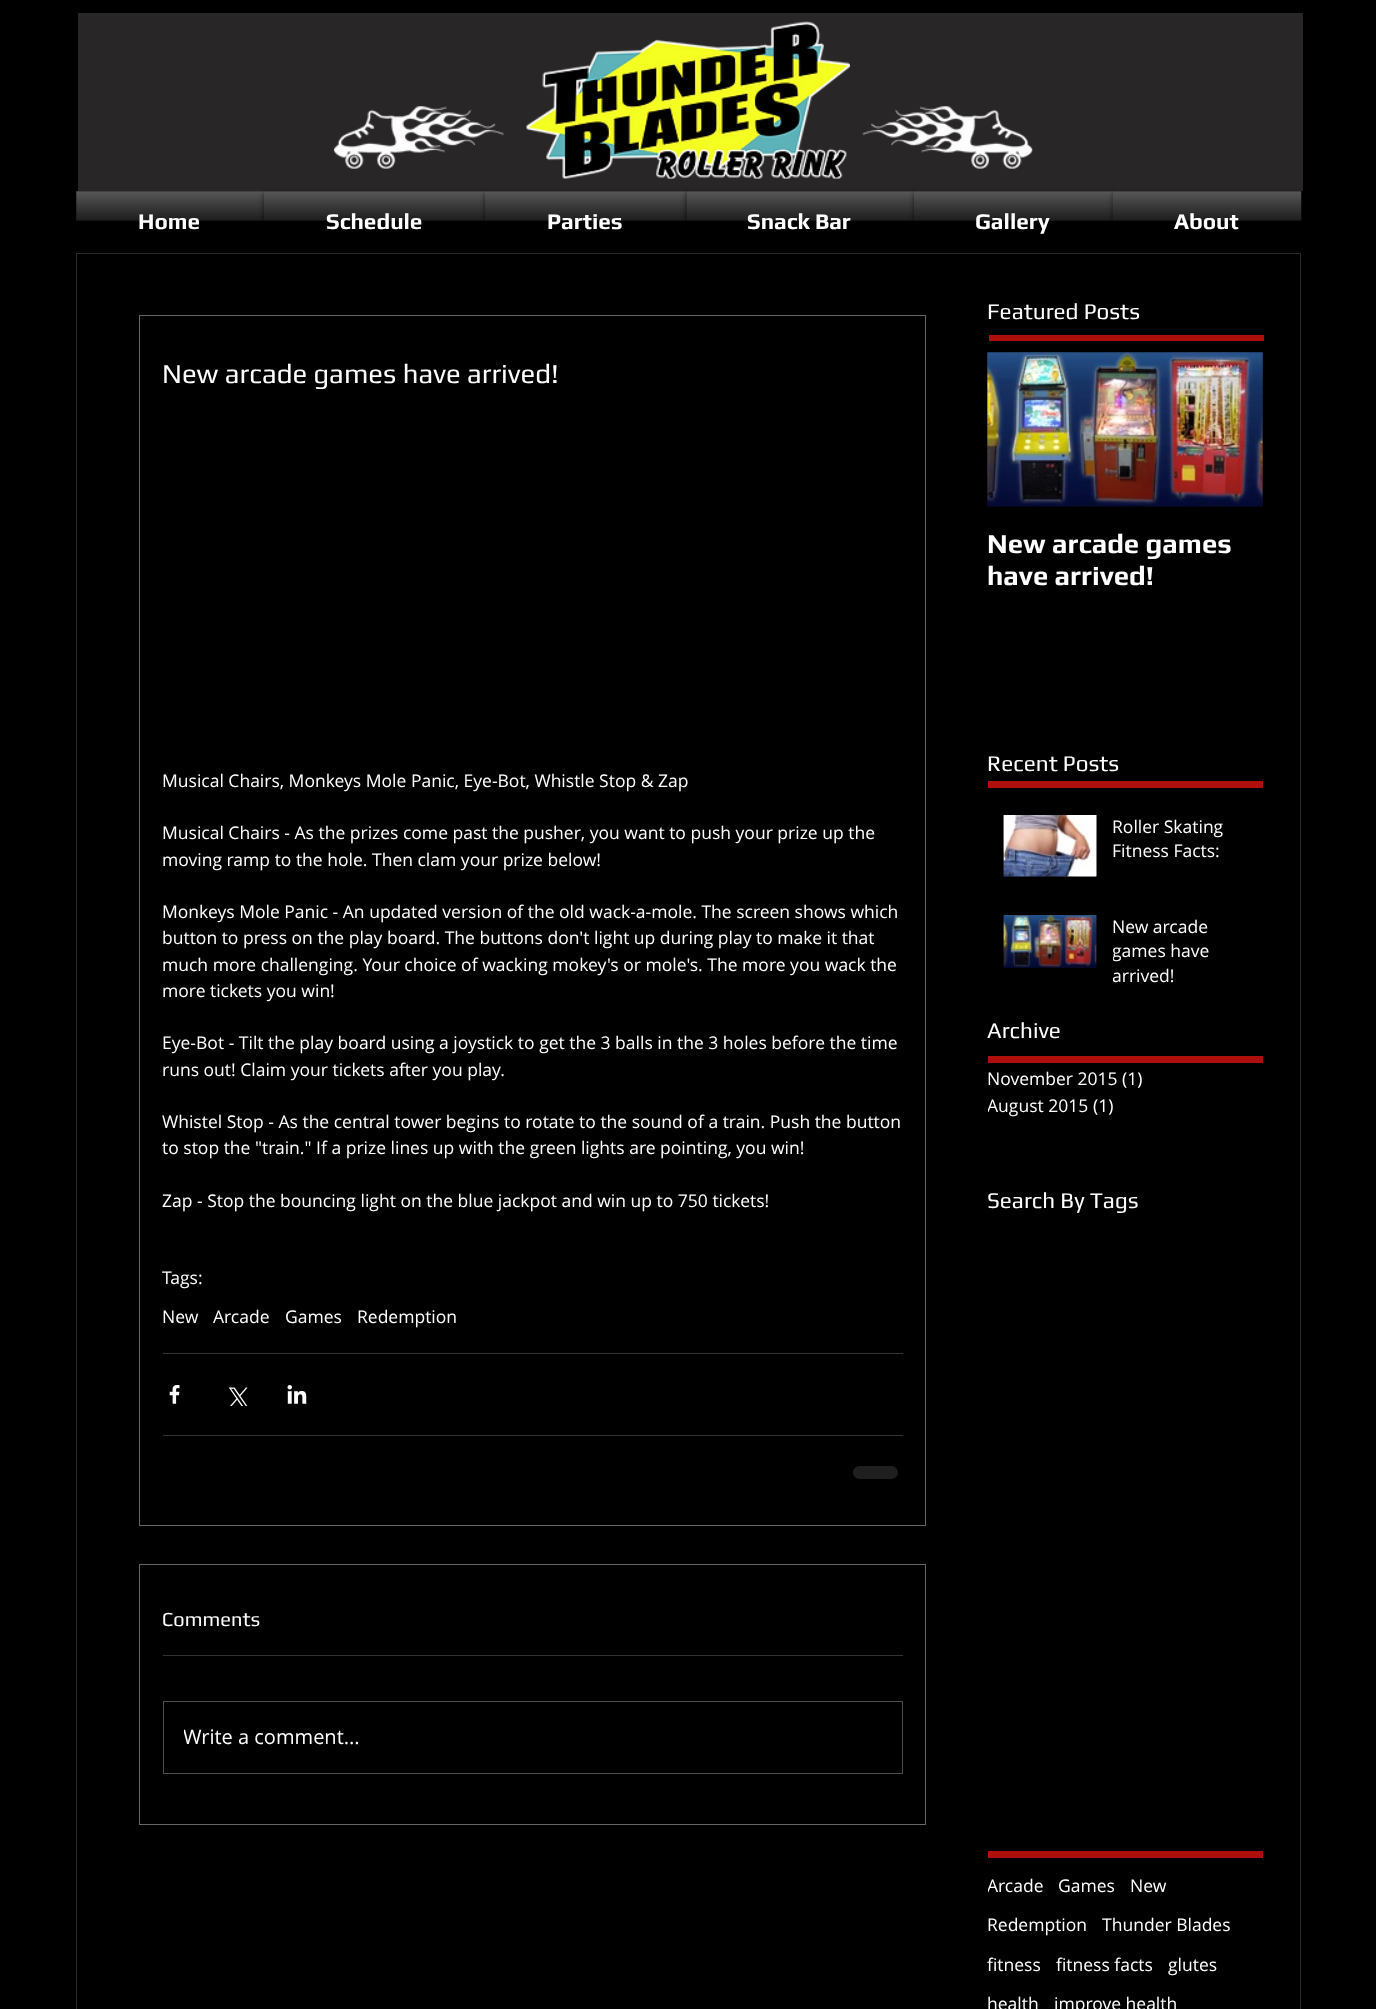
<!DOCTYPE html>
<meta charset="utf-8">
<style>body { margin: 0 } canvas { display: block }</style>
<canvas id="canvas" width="1376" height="2009"></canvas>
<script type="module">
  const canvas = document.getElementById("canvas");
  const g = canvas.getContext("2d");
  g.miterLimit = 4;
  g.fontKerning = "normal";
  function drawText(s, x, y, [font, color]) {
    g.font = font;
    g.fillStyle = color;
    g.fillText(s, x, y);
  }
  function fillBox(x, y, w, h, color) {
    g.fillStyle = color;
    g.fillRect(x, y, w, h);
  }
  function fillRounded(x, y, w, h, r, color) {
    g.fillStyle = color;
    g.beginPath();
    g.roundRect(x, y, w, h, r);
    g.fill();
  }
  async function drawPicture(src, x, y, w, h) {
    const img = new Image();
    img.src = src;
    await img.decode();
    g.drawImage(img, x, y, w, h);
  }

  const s1 = ["bold 22.5px Play", "#FFFFFF"];
  const s2 = ["22.5px Play", "#FFFFFF"];
  const s3 = ["27.5px Play", "#FFFFFF"];
  const s4 = ["17.5px Open Sans", "#FFFFFF"];
  const s5 = ["20px Play", "#FFFFFF"];
  const s6 = ["20px Open Sans", "#FFFFFF"];
  const s7 = ["bold 27.5px Play", "#FFFFFF"];

  fillBox(0, 0, 1376, 2009, "#000000");
  fillBox(78, 13, 1225, 178, "#282626");
  await drawPicture("pic1.png", 333, 106, 171, 63);
  await drawPicture("pic2.png", 526, 21, 324, 158);
  await drawPicture("pic3.png", 862, 106, 171, 63);
  await drawPicture("pic4.png", 76, 191, 188, 30);
  drawText("Home", 138, 229, s1);
  g.save();
  g.beginPath();
  g.moveTo(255, 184);
  g.lineTo(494, 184);
  g.lineTo(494, 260);
  g.lineTo(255, 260);
  g.closePath();
  g.moveTo(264, 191);
  g.lineTo(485, 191);
  g.lineTo(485, 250);
  g.lineTo(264, 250);
  g.closePath();
  g.clip("evenodd");
  g.fillStyle = "rgba(0, 0, 0, 0.6)";
  g.filter = "blur(2.5px)";
  g.beginPath();
  g.rect(264, 193, 221, 58);
  g.fill();
  g.filter = "none";
  g.restore();
  await drawPicture("pic5.png", 263, 191, 222, 30);
  drawText("Schedule", 326, 229, s1);
  g.save();
  g.beginPath();
  g.moveTo(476, 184);
  g.lineTo(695, 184);
  g.lineTo(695, 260);
  g.lineTo(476, 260);
  g.closePath();
  g.moveTo(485, 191);
  g.lineTo(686, 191);
  g.lineTo(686, 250);
  g.lineTo(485, 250);
  g.closePath();
  g.clip("evenodd");
  g.fillStyle = "rgba(0, 0, 0, 0.6)";
  g.filter = "blur(2.5px)";
  g.beginPath();
  g.rect(485, 193, 201, 58);
  g.fill();
  g.filter = "none";
  g.restore();
  await drawPicture("pic6.png", 485, 191, 201, 30);
  drawText("Parties", 547, 229, s1);
  g.fillStyle = "rgba(0, 0, 0, 0.6)";
  g.filter = "blur(2.5px)";
  g.beginPath();
  g.rect(686, 193, 228, 58);
  g.fill();
  g.filter = "none";
  await drawPicture("pic7.png", 686, 191, 228, 30);
  drawText("Snack Bar", 747, 229, s1);
  g.save();
  g.beginPath();
  g.moveTo(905, 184);
  g.lineTo(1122, 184);
  g.lineTo(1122, 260);
  g.lineTo(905, 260);
  g.closePath();
  g.moveTo(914, 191);
  g.lineTo(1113, 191);
  g.lineTo(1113, 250);
  g.lineTo(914, 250);
  g.closePath();
  g.clip("evenodd");
  g.fillStyle = "rgba(0, 0, 0, 0.6)";
  g.filter = "blur(2.5px)";
  g.beginPath();
  g.rect(914, 193, 199, 58);
  g.fill();
  g.filter = "none";
  g.restore();
  await drawPicture("pic8.png", 913, 191, 200, 30);
  drawText("Gallery", 975, 229, s1);
  g.save();
  g.beginPath();
  g.moveTo(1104, 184);
  g.lineTo(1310, 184);
  g.lineTo(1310, 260);
  g.lineTo(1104, 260);
  g.closePath();
  g.moveTo(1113, 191);
  g.lineTo(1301, 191);
  g.lineTo(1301, 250);
  g.lineTo(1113, 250);
  g.closePath();
  g.clip("evenodd");
  g.fillStyle = "rgba(0, 0, 0, 0.6)";
  g.filter = "blur(2.5px)";
  g.beginPath();
  g.rect(1113, 193, 188, 58);
  g.fill();
  g.filter = "none";
  g.restore();
  await drawPicture("pic9.png", 1112, 191, 190, 30);
  drawText("About", 1174, 229, s1);
  g.strokeStyle = "#2B2B2B";
  g.strokeRect(76.5, 253.5, 1224, 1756);
  drawText("Featured Posts", 987, 319, s2);
  fillBox(989, 335, 275, 6, "#AF0F0C");
  g.strokeStyle = "#666666";
  g.strokeRect(139.5, 315.5, 786, 1210);
  drawText("New arcade games have arrived!", 162, 383, s3);
  drawText("Musical Chairs, Monkeys Mole Panic, Eye-Bot, Whistle Stop & Zap", 162, 787, s4);
  drawText("Musical Chairs - As the prizes come past the pusher, you want to push your prize up the", 162, 839, s4);
  drawText("moving ramp to the hole. Then clam your prize below!", 162, 866, s4);
  drawText("Monkeys Mole Panic - An updated version of the old wack-a-mole. The screen shows which", 162, 918, s4);
  drawText("button to press on the play board. The buttons don't light up during play to make it that", 162, 944, s4);
  drawText("much more challenging. Your choice of wacking mokey's or mole's. The more you wack the", 162, 971, s4);
  drawText("more tickets you win!", 162, 997, s4);
  drawText("Eye-Bot - Tilt the play board using a joystick to get the 3 balls in the 3 holes before the time", 162, 1049, s4);
  drawText("runs out! Claim your tickets after you play.", 162, 1076, s4);
  drawText("Whistel Stop - As the central tower begins to rotate to the sound of a train. Push the button", 162, 1128, s4);
  drawText("to stop the \"train.\" If a prize lines up with the green lights are pointing, you win!", 162, 1154, s4);
  drawText("Zap - Stop the bouncing light on the blue jackpot and win up to 750 tickets!", 162, 1207, s4);
  drawText("Tags:", 162, 1284, s4);
  drawText("New", 162, 1323, s4);
  drawText("Arcade", 213, 1323, s4);
  drawText("Games", 285, 1323, s4);
  drawText("Redemption", 357, 1323, s4);
  fillBox(163, 1353, 740, 1, "#333333");
  await drawPicture("pic10.png", 169, 1385, 11, 19);
  await drawPicture("pic11.png", 228, 1387, 20, 19);
  await drawPicture("pic12.png", 287, 1385, 20, 19);
  fillBox(163, 1435, 740, 1, "#333333");
  fillRounded(853, 1466, 45, 13, 6.5, "#1F1F1F");
  g.strokeRect(139.5, 1564.5, 786, 260);
  drawText("Comments", 162, 1626, s5);
  fillBox(163, 1655, 740, 1, "#333333");
  g.strokeStyle = "#4D4D4D";
  g.strokeRect(163.5, 1701.5, 739, 72);
  g.save();
  g.beginPath();
  g.rect(184, 1723, 697, 30);
  g.clip();
  drawText("Write a comment...", 183, 1744, s6);
  g.restore();
  await drawPicture("pic13.png", 987, 352, 276, 155);
  await drawPicture("pic14.png", 987, 352, 276, 155);
  drawText("New arcade games", 987, 553, s7);
  drawText("have arrived!", 987, 585, s7);
  drawText("Recent Posts", 987, 771, s2);
  fillBox(988, 781, 275, 7, "#AF0F0C");
  await drawPicture("pic15.png", 1003, 815, 94, 62);
  await drawPicture("pic16.png", 1003, 815, 94, 62);
  drawText("Roller Skating", 1112, 833, s4);
  drawText("Fitness Facts:", 1112, 857, s4);
  await drawPicture("pic17.png", 1003, 915, 94, 53);
  await drawPicture("pic18.png", 1003, 915, 94, 53);
  drawText("New arcade", 1112, 933, s4);
  g.save();
  g.beginPath();
  g.rect(1113, 914, 135, 70);
  g.clip();
  drawText("games have", 1112, 957, s4);
  drawText("arrived!", 1112, 982, s4);
  g.restore();
  drawText("Archive", 987, 1038, s2);
  fillBox(988, 1056, 275, 7, "#AF0F0C");
  drawText("November 2015 (1)", 987, 1085, s4);
  g.save();
  g.beginPath();
  g.rect(988, 1091, 125, 27);
  g.clip();
  drawText("August 2015", 987, 1112, s4);
  g.restore();
  drawText("(1)", 1093, 1112, s4);
  drawText("Search By Tags", 987, 1208, s2);
  fillBox(988, 1851, 275, 7, "#AF0F0C");
  g.save();
  g.beginPath();
  g.rect(988, 1874, 56, 24);
  g.clip();
  drawText("Arcade", 987, 1892, s4);
  g.restore();
  drawText("Games", 1058, 1892, s4);
  drawText("New", 1130, 1892, s4);
  drawText("Redemption", 987, 1931, s4);
  drawText("Thunder Blades", 1102, 1931, s4);
  drawText("fitness", 987, 1971, s4);
  drawText("fitness facts", 1056, 1971, s4);
  drawText("glutes", 1168, 1971, s4);
  drawText("health", 987, 2010, s4);
  drawText("improve health", 1054, 2010, s4);
</script>
